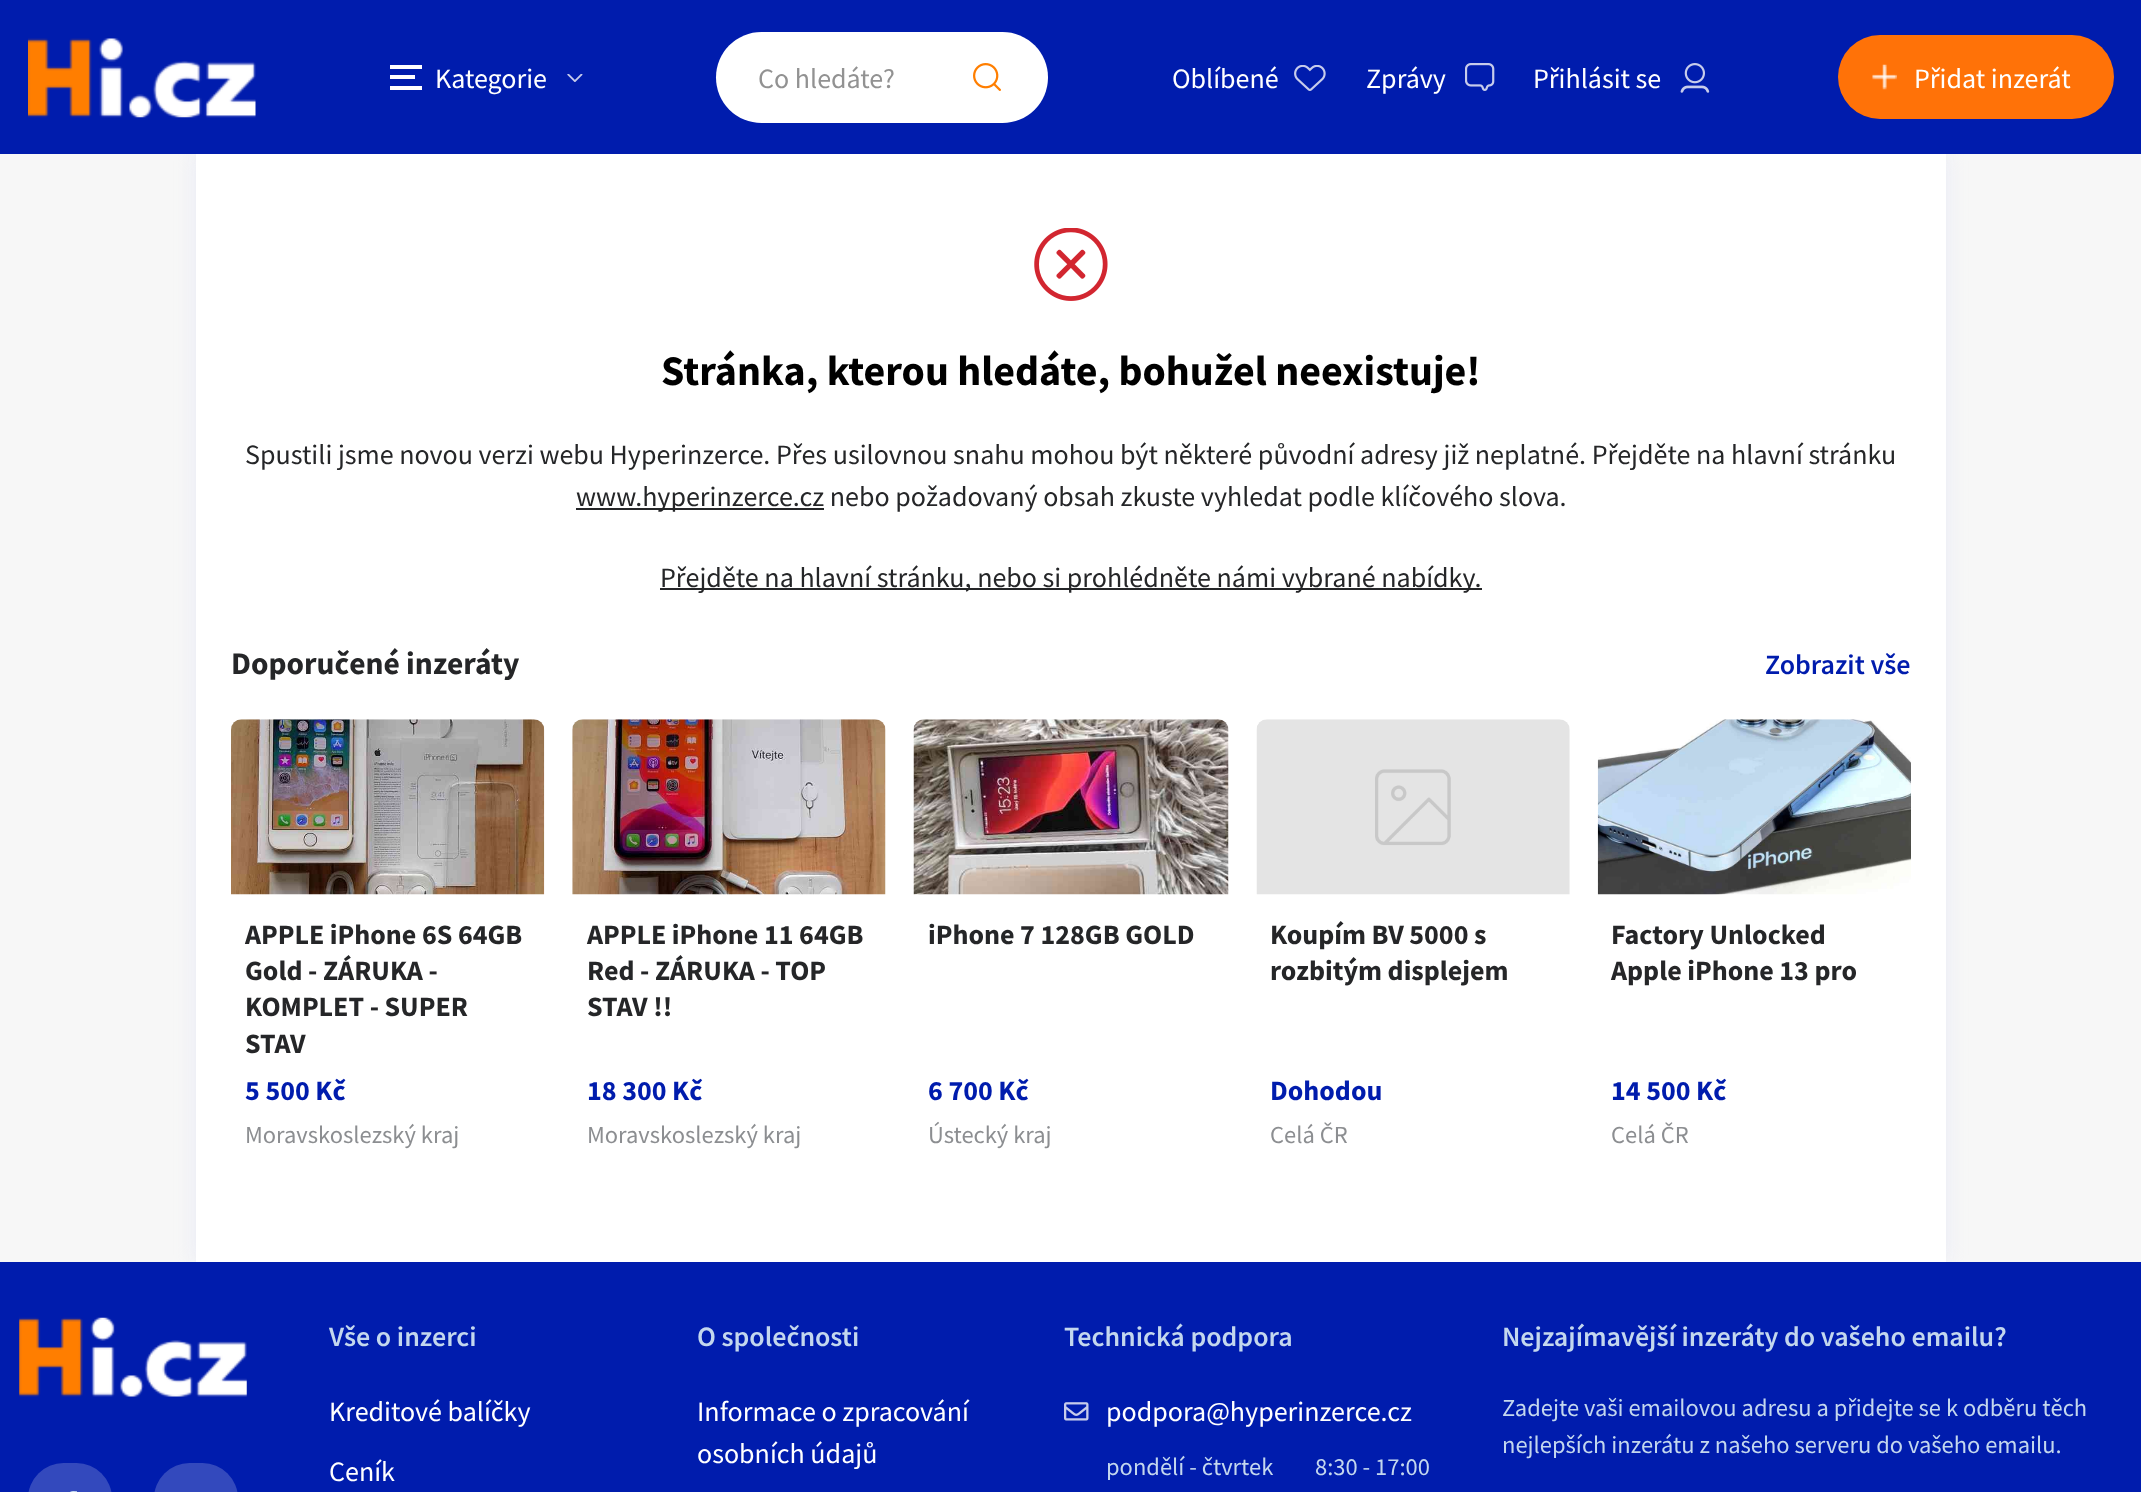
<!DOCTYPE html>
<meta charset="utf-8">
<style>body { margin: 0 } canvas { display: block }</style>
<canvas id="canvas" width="2141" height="1492"></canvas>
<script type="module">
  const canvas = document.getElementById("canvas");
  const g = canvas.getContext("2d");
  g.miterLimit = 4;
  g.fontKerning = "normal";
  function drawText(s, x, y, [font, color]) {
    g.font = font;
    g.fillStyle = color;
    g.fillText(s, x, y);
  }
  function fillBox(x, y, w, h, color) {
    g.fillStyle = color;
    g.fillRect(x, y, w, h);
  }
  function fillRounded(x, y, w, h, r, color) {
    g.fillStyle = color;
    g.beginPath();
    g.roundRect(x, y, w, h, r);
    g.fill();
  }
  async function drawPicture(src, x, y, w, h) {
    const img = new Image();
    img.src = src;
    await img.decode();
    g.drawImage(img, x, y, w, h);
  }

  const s1 = ["28px Source Sans Pro", "#FFFFFF"];
  const s2 = ["28px Source Sans Pro", "#929292"];
  const s3 = ["bold 42px Source Sans Pro", "#000000"];
  const s4 = ["28px Source Sans Pro", "#252628"];
  const s5 = ["bold 31.5px Source Sans Pro", "#252628"];
  const s6 = ["600 28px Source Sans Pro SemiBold", "#001CAD"];
  const s7 = ["bold 28px Source Sans Pro", "#252628"];
  const s8 = ["bold 28px Source Sans Pro", "#001CAD"];
  const s9 = ["24.5px Source Sans Pro", "#8C8E91"];
  const s10 = ["600 28px Source Sans Pro SemiBold", "#C3D7EE"];
  const s11 = ["24.5px Source Sans Pro", "#C3D7EE"];

  fillBox(0, 0, 2141, 1492, "#F7F7F7");
  g.fillStyle = "rgba(221, 225, 245, 0.6)";
  g.filter = "blur(10.5px)";
  g.beginPath();
  g.rect(196, 154, 1750, 1108);
  g.fill();
  g.filter = "none";
  fillBox(0, 0, 2141, 154, "#001CAD");
  await drawPicture("pic1.png", 28, 38, 228, 80);
  await drawPicture("pic2.png", 567, 74, 16, 8);
  fillBox(390, 65, 32, 4, "#FFFFFF");
  fillBox(390, 75, 25, 4, "#FFFFFF");
  fillBox(390, 86, 32, 4, "#FFFFFF");
  drawText("Kategorie", 435, 88, s1);
  fillRounded(716, 32, 332, 91, 45.5, "#FFFFFF");
  drawText("Co hledáte?", 758, 88, s2);
  await drawPicture("pic3.png", 973, 63, 28, 28);
  await drawPicture("pic4.png", 1294, 65, 32, 26);
  drawText("Oblíbené", 1172, 88, s1);
  await drawPicture("pic5.png", 1465, 63, 30, 28);
  drawText("Zprávy", 1366, 88, s1);
  await drawPicture("pic6.png", 1680, 63, 30, 30);
  drawText("Přihlásit se", 1533, 88, s1);
  fillRounded(1838, 35, 276, 84, 42, "#FF7208");
  await drawPicture("pic7.png", 1872, 64, 25, 26);
  drawText("Přidat inzerát", 1914, 88, s1);
  fillBox(196, 154, 1750, 1108, "#FFFFFF");
  await drawPicture("pic8.png", 1034, 228, 74, 73);
  drawText("Stránka, kterou hledáte, bohužel neexistuje!", 661, 385, s3);
  drawText("Spustili jsme novou verzi webu Hyperinzerce. Přes usilovnou snahu mohou být některé původní adresy již neplatné. Přejděte na hlavní stránku", 245, 464, s4);
  fillBox(576, 508, 248, 2, "#252628");
  drawText("www.hyperinzerce.cz nebo požadovaný obsah zkuste vyhledat podle klíčového slova.", 576, 506, s4);
  fillBox(660, 588, 822, 2, "#252628");
  drawText("Přejděte na hlavní stránku, nebo si prohlédněte námi vybrané nabídky.", 660, 587, s4);
  drawText("Doporučené inzeráty", 231, 674, s5);
  drawText("Zobrazit vše", 1765, 674, s6);
  await drawPicture("pic9.png", 231, 719, 314, 176);
  drawText("APPLE iPhone 6S 64GB", 245, 944, s7);
  drawText("Gold - ZÁRUKA -", 245, 980, s7);
  drawText("KOMPLET - SUPER", 245, 1016, s7);
  drawText("STAV", 245, 1053, s7);
  drawText("5 500 Kč", 245, 1100, s8);
  drawText("Moravskoslezský kraj", 245, 1143, s9);
  await drawPicture("pic10.png", 572, 719, 314, 176);
  drawText("APPLE iPhone 11 64GB", 587, 944, s7);
  drawText("Red - ZÁRUKA - TOP", 587, 980, s7);
  drawText("STAV !!", 587, 1016, s7);
  drawText("18 300 Kč", 587, 1100, s8);
  drawText("Moravskoslezský kraj", 587, 1143, s9);
  await drawPicture("pic11.png", 913, 719, 316, 176);
  drawText("iPhone 7 128GB GOLD", 928, 944, s7);
  drawText("6 700 Kč", 928, 1100, s8);
  drawText("Ústecký kraj", 928, 1143, s9);
  await drawPicture("pic12.png", 1256, 719, 314, 176);
  drawText("Koupím BV 5000 s", 1270, 944, s7);
  drawText("rozbitým displejem", 1270, 980, s7);
  drawText("Dohodou", 1270, 1100, s8);
  drawText("Celá ČR", 1270, 1143, s9);
  await drawPicture("pic13.png", 1597, 719, 314, 176);
  drawText("Factory Unlocked", 1611, 944, s7);
  drawText("Apple iPhone 13 pro", 1611, 980, s7);
  drawText("14 500 Kč", 1611, 1100, s8);
  drawText("Celá ČR", 1611, 1143, s9);
  fillBox(0, 1262, 2141, 230, "#001CAD");
  await drawPicture("pic14.png", 19, 1317, 228, 80);
  fillRounded(28, 1463, 84, 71, 42, "#3349BD");
  await drawPicture("pic15.png", 70, 1491, 7, 1);
  fillRounded(154, 1463, 84, 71, 42, "#3349BD");
  drawText("Vše o inzerci", 329, 1346, s10);
  drawText("Kreditové balíčky", 329, 1421, s1);
  drawText("Ceník", 329, 1481, s1);
  drawText("O společnosti", 697, 1346, s10);
  drawText("Informace o zpracování", 697, 1421, s1);
  drawText("osobních údajů", 697, 1463, s1);
  drawText("Technická podpora", 1064, 1346, s10);
  await drawPicture("pic16.png", 1064, 1402, 25, 19);
  drawText("podpora@hyperinzerce.cz", 1106, 1421, s1);
  drawText("pondělí - čtvrtek", 1106, 1475, s11);
  drawText("8:30 - 17:00", 1315, 1475, s11);
  drawText("Nejzajímavější inzeráty do vašeho emailu?", 1502, 1346, s10);
  drawText("Zadejte vaši emailovou adresu a přidejte se k odběru těch", 1502, 1416, s11);
  drawText("nejlepších inzerátu z našeho serveru do vašeho emailu.", 1502, 1453, s11);
</script>
